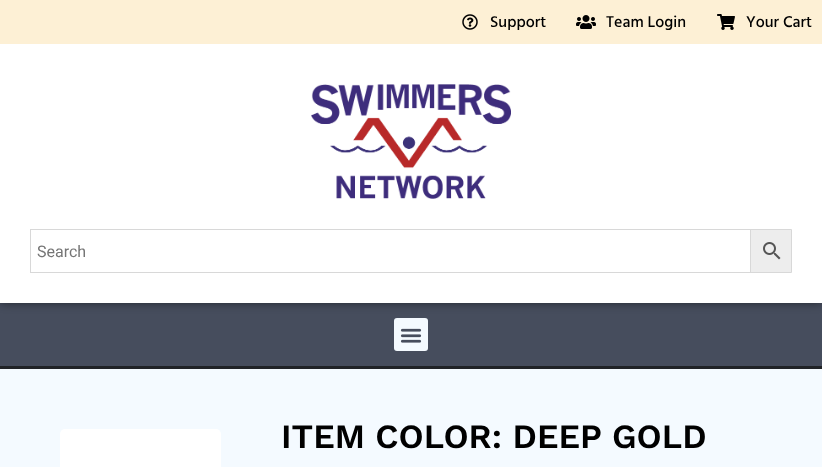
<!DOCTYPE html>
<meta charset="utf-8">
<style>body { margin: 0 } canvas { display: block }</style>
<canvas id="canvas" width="822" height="467"></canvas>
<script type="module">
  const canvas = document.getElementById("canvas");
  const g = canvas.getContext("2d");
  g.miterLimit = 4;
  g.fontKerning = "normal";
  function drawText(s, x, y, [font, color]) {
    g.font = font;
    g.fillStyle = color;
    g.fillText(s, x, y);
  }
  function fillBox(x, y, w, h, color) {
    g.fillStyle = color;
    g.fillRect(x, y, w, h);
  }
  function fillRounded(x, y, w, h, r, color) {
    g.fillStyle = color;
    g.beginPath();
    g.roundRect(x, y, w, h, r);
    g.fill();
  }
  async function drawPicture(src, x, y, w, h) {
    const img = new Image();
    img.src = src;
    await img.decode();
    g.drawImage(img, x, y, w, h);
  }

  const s1 = ["500 16px Hind Madurai", "#000000"];
  const s2 = ["16px Roboto", "#757575"];
  const s3 = ["600 34px Work Sans", "#000000"];

  fillBox(0, 0, 822, 467, "#F4FAFF");
  fillBox(0, 303, 822, 63, "#464D5D");
  fillRounded(394, 318, 34, 33, 3, "#F4FAFF");
  g.fillStyle = "rgba(0, 0, 0, 0.5)";
  g.filter = "blur(5px)";
  g.beginPath();
  g.rect(0, 44, 822, 259);
  g.fill();
  g.filter = "none";
  fillBox(0, 0, 822, 44, "#FDF0D5");
  await drawPicture("pic1.png", 462, 14, 16, 16);
  drawText("Support", 490, 27, s1);
  await drawPicture("pic2.png", 576, 15, 20, 14);
  drawText("Team Login", 606, 27, s1);
  await drawPicture("pic3.png", 717, 14, 18, 16);
  drawText("Your Cart", 746, 27, s1);
  fillBox(0, 44, 822, 259, "#FFFFFF");
  await drawPicture("pic4.png", 311, 84, 200, 115);
  g.fillStyle = "#EDEDED";
  g.beginPath();
  g.rect(750.5, 229.5, 41, 43);
  g.fill();
  g.strokeStyle = "#D8D8D8";
  g.stroke();
  g.strokeRect(30.5, 229.5, 720, 43);
  drawText("Search", 37, 257, s2);
  await drawPicture("pic5.png", 763, 242, 18, 18);
  fillBox(0, 366, 822, 3, "#202327");
  await drawPicture("pic6.png", 400, 328, 22, 15);
  fillRounded(60, 429, 161, 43, 5, "#FFFFFF");
  drawText("ITEM COLOR: DEEP GOLD", 281, 448, s3);
</script>
